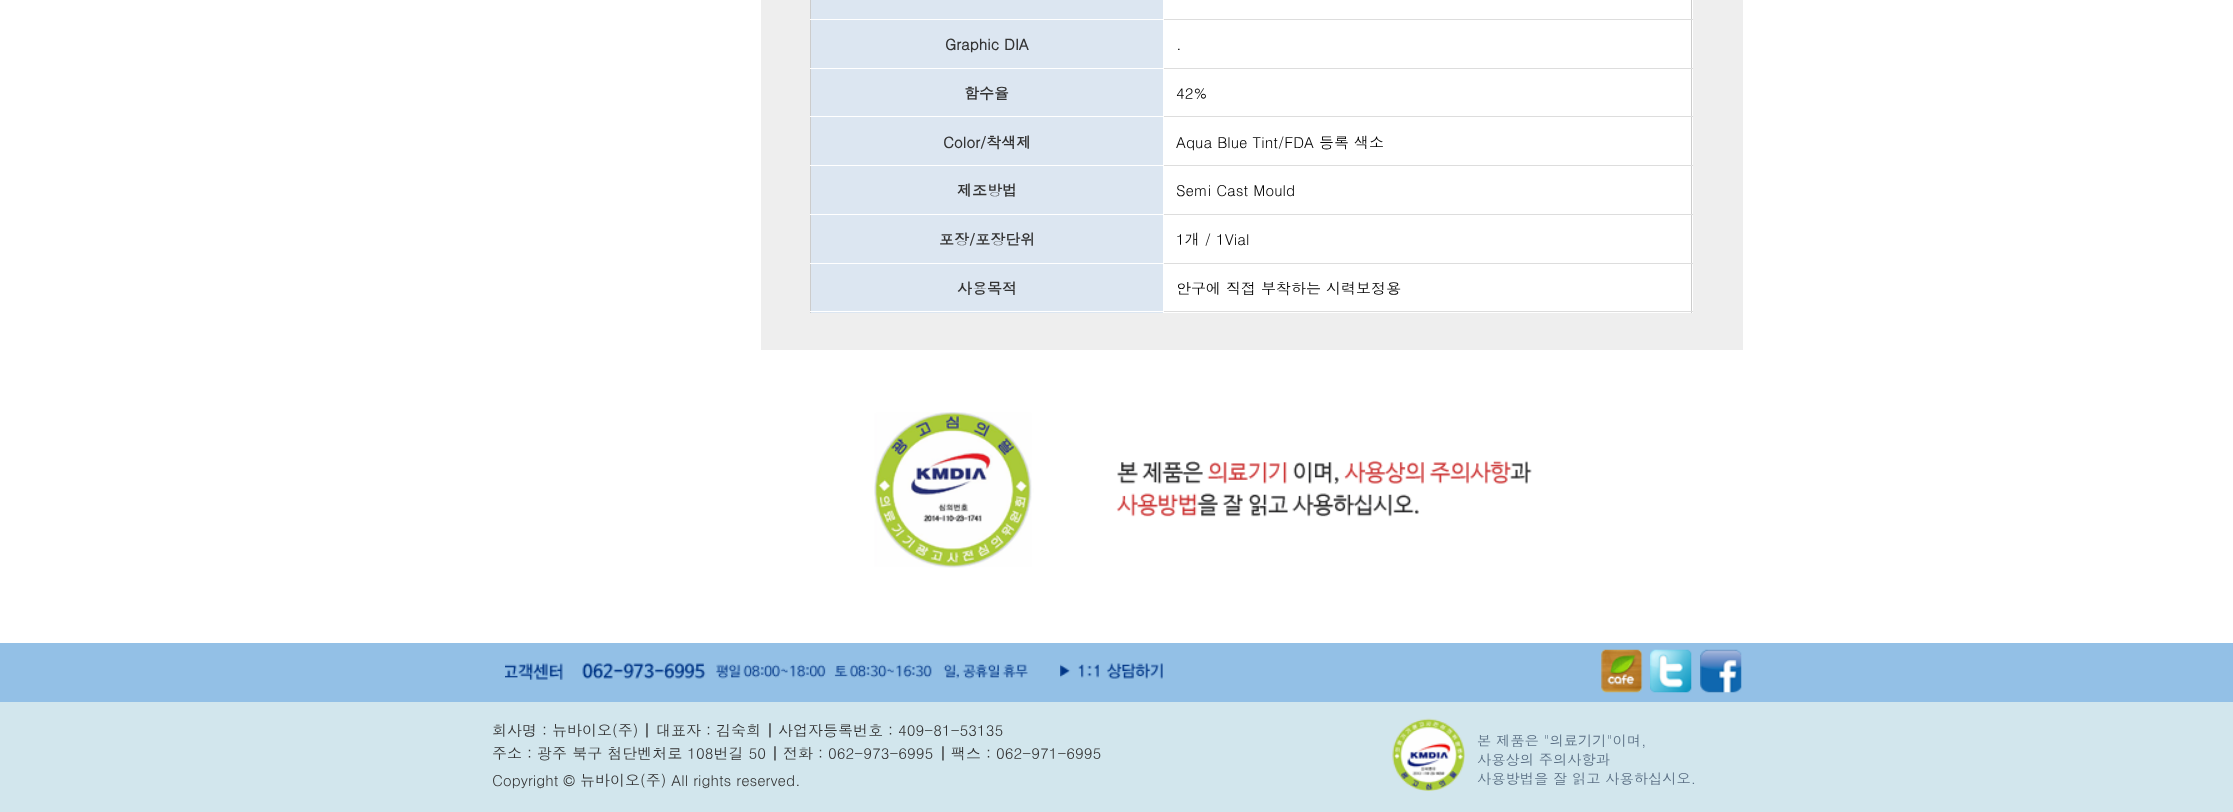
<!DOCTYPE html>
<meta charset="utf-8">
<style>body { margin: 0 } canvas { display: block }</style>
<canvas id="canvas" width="2233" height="812"></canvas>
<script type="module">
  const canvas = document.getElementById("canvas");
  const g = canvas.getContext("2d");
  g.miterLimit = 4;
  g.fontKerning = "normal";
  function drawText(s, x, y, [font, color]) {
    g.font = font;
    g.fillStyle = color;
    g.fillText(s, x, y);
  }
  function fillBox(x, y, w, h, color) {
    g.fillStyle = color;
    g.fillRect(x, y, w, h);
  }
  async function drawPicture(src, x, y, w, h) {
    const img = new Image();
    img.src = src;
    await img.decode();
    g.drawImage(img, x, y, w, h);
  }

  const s1 = ["bold 15px Dotum", "#333333"];
  const s2 = ["15px Dotum", "#000000"];
  const s3 = ["15px Dotum", "#333333"];
  const s4 = ["14.25px Dotum", "#5A6F84"];

  fillBox(0, 0, 2233, 812, "#FFFFFF");
  fillBox(761, 0, 982, 350, "#EEEEEE");
  fillBox(1163, 0, 530, 19, "#FFFFFF");
  fillBox(1163, 20, 530, 48, "#FFFFFF");
  fillBox(1163, 69, 530, 96, "#FFFFFF");
  fillBox(1163, 166, 530, 48, "#FFFFFF");
  fillBox(1163, 215, 530, 48, "#FFFFFF");
  fillBox(1163, 264, 530, 49, "#FFFFFF");
  fillBox(1691, 0, 1, 313, "#CCCCCC");
  fillBox(810, 0, 1, 313, "#CCCCCC");
  fillBox(811, 0, 352, 19, "#DCE6F1");
  fillBox(1163, 19, 530, 1, "#DDDDDD");
  fillBox(810, 19, 354, 1, "#FFFFFF");
  fillBox(811, 20, 352, 48, "#DCE6F1");
  fillBox(1163, 68, 530, 1, "#DDDDDD");
  fillBox(810, 68, 354, 1, "#FFFFFF");
  drawText("Graphic DIA", 945, 50, s1);
  drawText(".", 1176, 50, s2);
  fillBox(811, 69, 352, 96, "#DCE6F1");
  fillBox(1163, 116, 530, 1, "#DDDDDD");
  fillBox(810, 116, 354, 1, "#FFFFFF");
  drawText("함수율", 964, 99, s1);
  drawText("42%", 1176, 99, s2);
  fillBox(1163, 165, 530, 1, "#DDDDDD");
  fillBox(810, 165, 354, 1, "#FFFFFF");
  drawText("Color/착색제", 943, 148, s1);
  drawText("Aqua Blue Tint/FDA 등록 색소", 1176, 148, s2);
  fillBox(811, 166, 352, 48, "#DCE6F1");
  fillBox(1163, 214, 530, 1, "#DDDDDD");
  fillBox(810, 214, 354, 1, "#FFFFFF");
  drawText("제조방법", 957, 196, s1);
  drawText("Semi Cast Mould", 1176, 196, s2);
  fillBox(811, 215, 352, 48, "#DCE6F1");
  fillBox(1163, 263, 530, 1, "#DDDDDD");
  fillBox(810, 263, 354, 1, "#FFFFFF");
  drawText("포장/포장단위", 939, 245, s1);
  drawText("1개 / 1Vial", 1176, 245, s2);
  fillBox(811, 264, 352, 49, "#DCE6F1");
  fillBox(1163, 311, 530, 1, "#DDDDDD");
  fillBox(810, 311, 354, 1, "#FFFFFF");
  drawText("사용목적", 957, 294, s1);
  drawText("안구에 직접 부착하는 시력보정용", 1176, 294, s2);
  await drawPicture("pic1.png", 874, 412, 658, 156);
  fillBox(0, 702, 2233, 110, "#D2E6ED");
  fillBox(0, 643, 2233, 59, "#93C0E6");
  await drawPicture("pic2.png", 505, 663, 523, 17);
  await drawPicture("pic3.png", 1060, 663, 103, 16);
  await drawPicture("pic4.png", 1601, 649, 42, 44);
  await drawPicture("pic5.png", 1650, 649, 42, 44);
  await drawPicture("pic6.png", 1700, 649, 42, 44);
  drawText("회사명 : 뉴바이오(주)", 492, 736, s3);
  drawText("|", 643, 736, s1);
  drawText("대표자 : 김숙희", 656, 736, s3);
  drawText("|", 766, 736, s1);
  drawText("사업자등록번호 : 409-81-53135", 778, 736, s3);
  drawText("주소 : 광주 북구 첨단벤처로 108번길 50", 492, 759, s3);
  drawText("|", 771, 759, s1);
  drawText("전화 : 062-973-6995", 783, 759, s3);
  drawText("|", 939, 759, s1);
  drawText("팩스 : 062-971-6995", 951, 759, s3);
  await drawPicture("pic7.png", 1392, 718, 73, 73);
  drawText("본 제품은 \"의료기기\"이며,", 1477, 746, s4);
  drawText("사용상의 주의사항과", 1477, 765, s4);
  drawText("사용방법을 잘 읽고 사용하십시오.", 1477, 784, s4);
  drawText("Copyright © 뉴바이오(주) All rights reserved.", 492, 786, s3);
</script>
